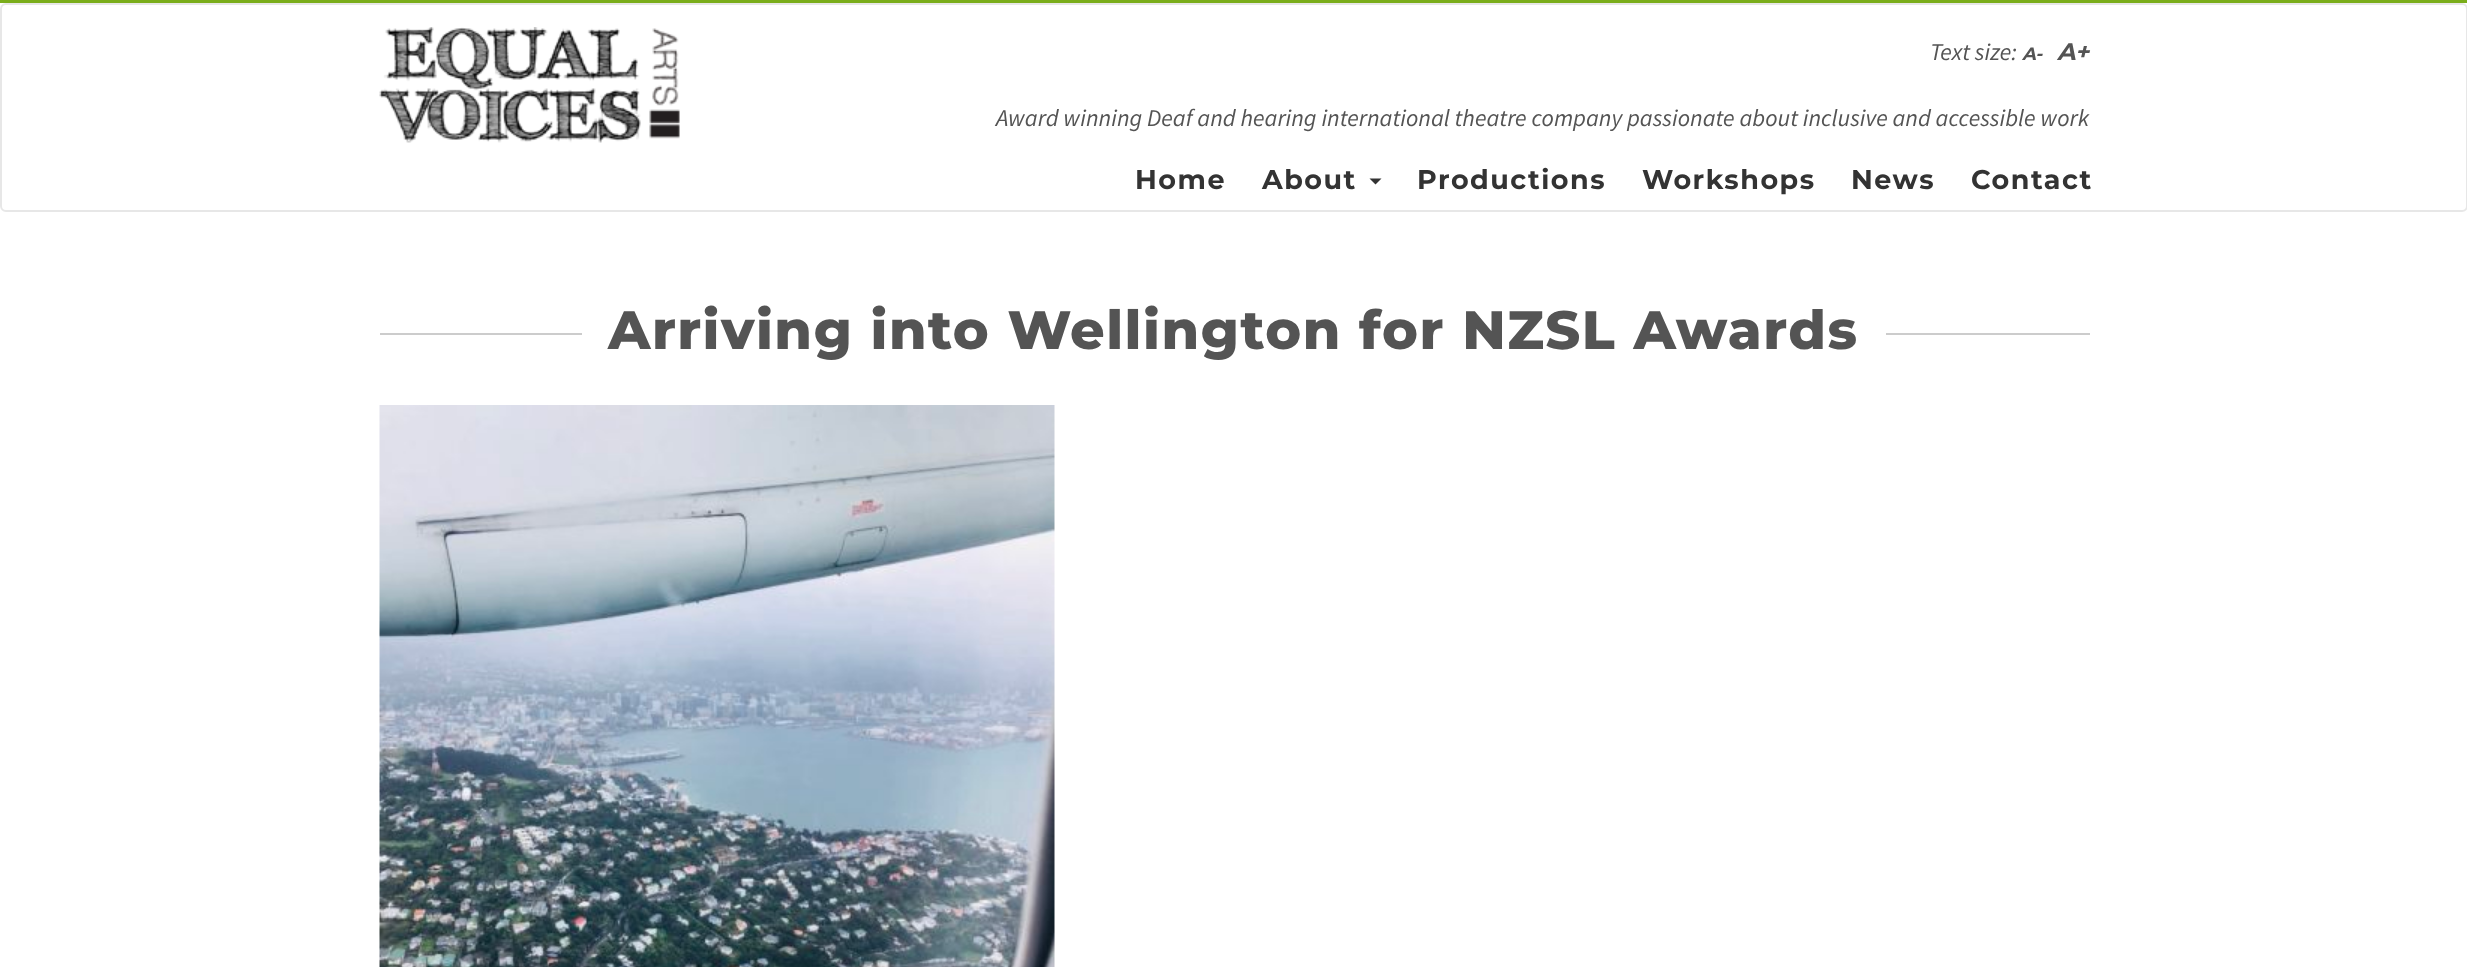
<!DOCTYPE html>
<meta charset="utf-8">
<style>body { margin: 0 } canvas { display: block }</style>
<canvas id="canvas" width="2467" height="967"></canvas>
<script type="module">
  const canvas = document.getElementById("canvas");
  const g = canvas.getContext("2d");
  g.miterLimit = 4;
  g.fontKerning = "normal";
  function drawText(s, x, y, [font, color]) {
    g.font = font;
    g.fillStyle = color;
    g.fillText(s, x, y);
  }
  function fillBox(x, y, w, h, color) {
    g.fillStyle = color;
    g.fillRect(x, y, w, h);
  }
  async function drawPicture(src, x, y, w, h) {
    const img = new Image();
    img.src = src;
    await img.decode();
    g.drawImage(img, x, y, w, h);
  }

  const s1 = ["italic 24px Source Sans Pro", "#545454"];
  const s2 = ["italic bold 18px Montserrat", "#545454"];
  const s3 = ["italic bold 24px Montserrat", "#545454"];
  const s4 = ["bold 27px Montserrat", "#333333"];
  const s5 = ["800 54px Montserrat", "#545454"];

  fillBox(0, 0, 2467, 967, "#FFFFFF");
  fillBox(0, 0, 2467, 3, "#7AAD1A");
  g.beginPath();
  g.roundRect(1, 4, 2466, 207, 5);
  g.strokeStyle = "#E7E7E7";
  g.lineWidth = 2;
  g.stroke();
  await drawPicture("pic1.png", 379, 27, 301, 116);
  drawText("Text size:", 1930, 60, s1);
  drawText("A-", 2022, 60, s2);
  drawText("A+", 2057, 60, s3);
  drawText("Award winning Deaf and hearing international theatre company passionate about inclusive and accessible work", 996, 126, s1);
  g.letterSpacing = "1.5px";
  drawText("Home", 1135, 189, s4);
  drawText("About", 1262, 189, s4);
  g.beginPath();
  g.moveTo(1369.5, 178.5);
  g.lineTo(1381.5, 178.5);
  g.lineTo(1375.5, 184.5);
  g.closePath();
  g.fill();
  drawText("Productions", 1417, 189, s4);
  drawText("Workshops", 1642, 189, s4);
  drawText("News", 1851, 189, s4);
  drawText("Contact", 1971, 189, s4);
  fillBox(380, 333, 202, 2, "#CCCCCC");
  drawText("Arriving into Wellington for NZSL Awards", 608, 349, s5);
  fillBox(1886, 333, 204, 2, "#CCCCCC");
  await drawPicture("pic2.png", 379, 405, 676, 562);
</script>
